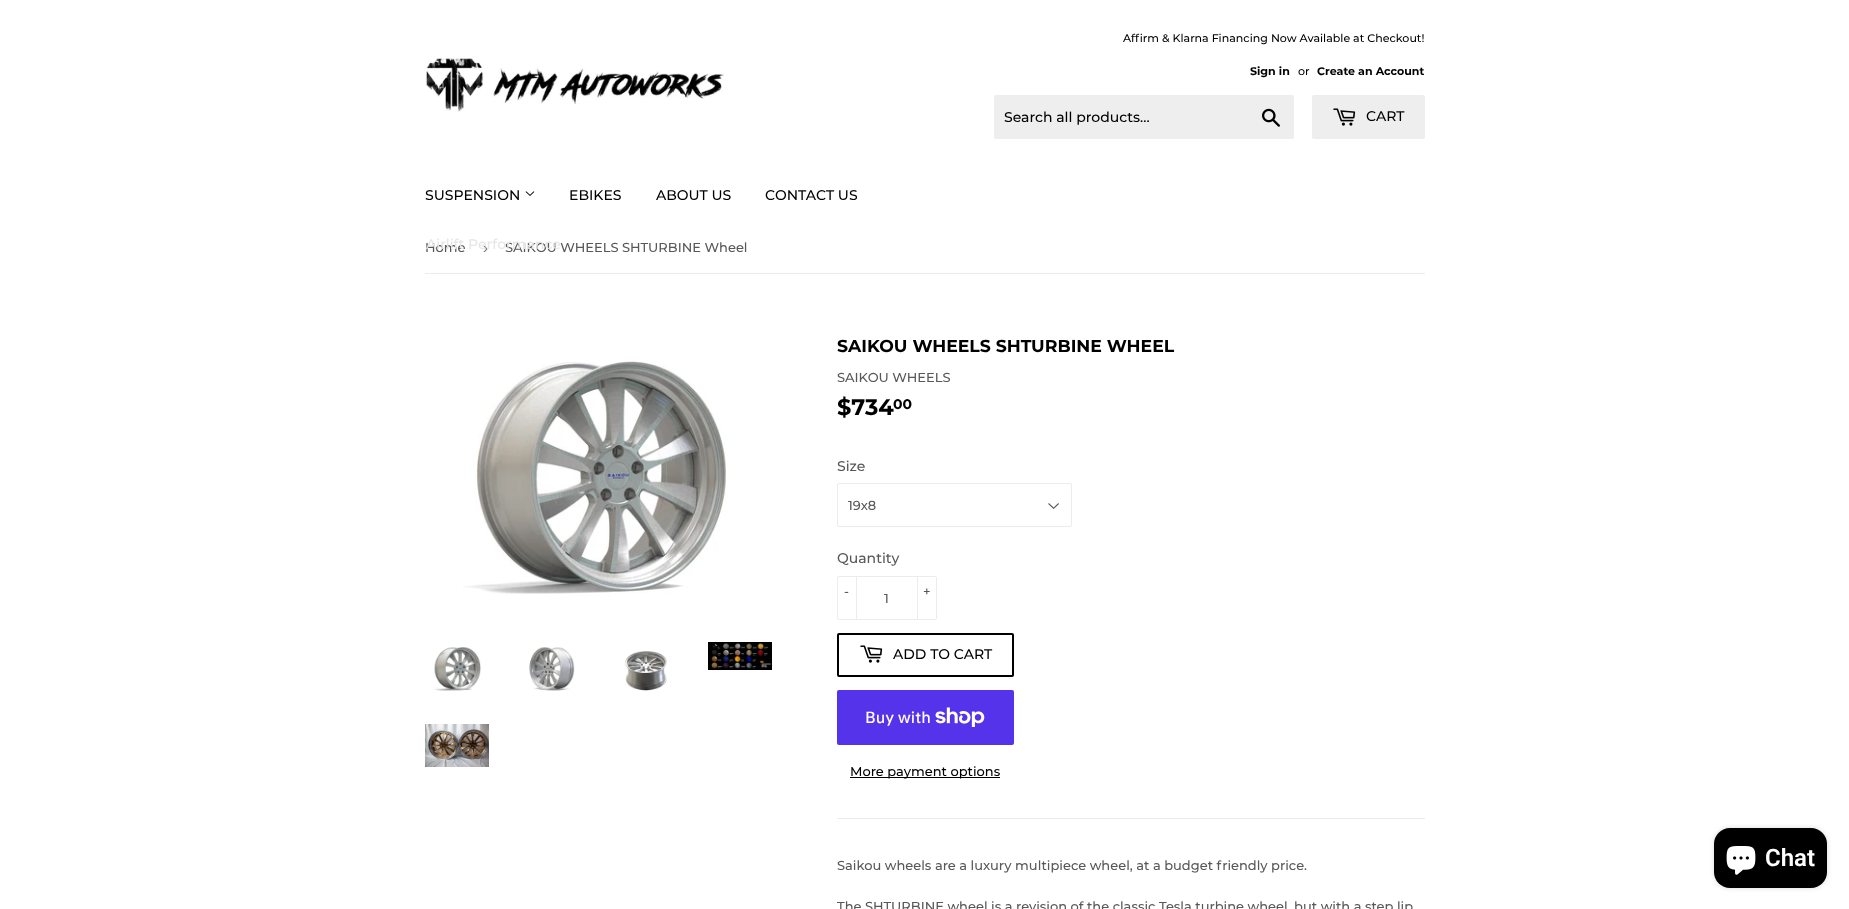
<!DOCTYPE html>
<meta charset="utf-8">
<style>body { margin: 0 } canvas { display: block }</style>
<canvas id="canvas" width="1849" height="909"></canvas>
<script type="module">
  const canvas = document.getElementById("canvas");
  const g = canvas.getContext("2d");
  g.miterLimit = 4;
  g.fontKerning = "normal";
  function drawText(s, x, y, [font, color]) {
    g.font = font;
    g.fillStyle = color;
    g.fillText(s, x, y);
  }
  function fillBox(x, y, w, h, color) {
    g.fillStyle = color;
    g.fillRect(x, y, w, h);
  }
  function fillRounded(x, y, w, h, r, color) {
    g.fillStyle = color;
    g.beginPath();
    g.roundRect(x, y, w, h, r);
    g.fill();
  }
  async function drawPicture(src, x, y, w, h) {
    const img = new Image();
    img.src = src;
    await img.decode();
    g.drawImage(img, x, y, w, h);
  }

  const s1 = ["500 11.05px Montserrat", "#000000"];
  const s2 = ["bold 11.05px Montserrat", "#000000"];
  const s3 = ["500 14px Montserrat", "#000000"];
  const s4 = ["500 13px Montserrat", "#585858"];
  const s5 = ["15px Liberation Sans", "#767676"];
  const s6 = ["500 14px Montserrat", "#E6E6E6"];
  const s7 = ["bold 17.3px Montserrat", "#000000"];
  const s8 = ["bold 22.5px Montserrat", "#000000"];
  const s9 = ["bold 14px Montserrat", "#000000"];
  const s10 = ["500 14px Montserrat", "#585858"];
  const s11 = ["500 16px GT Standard", "#FFFFFF"];
  const s12 = ["500 13px Montserrat", "#000000"];
  const s13 = ["600 24px Roboto", "#FFFFFF"];

  fillBox(0, 0, 1849, 909, "#FFFFFF");
  await drawPicture("pic1.png", 425, 58, 299, 55);
  drawText("Affirm & Klarna Financing Now Available at Checkout!", 1123, 42, s1);
  drawText("Sign in", 1250, 75, s2);
  drawText("or", 1298, 75, s1);
  drawText("Create an Account", 1317, 75, s2);
  fillRounded(994, 95, 300, 44, 2, "#EEEEEE");
  drawText("Search all products...", 1004, 122, s3);
  await drawPicture("pic2.png", 1262, 108, 18, 19);
  fillRounded(1312, 95, 113, 44, 2, "#EEEEEE");
  await drawPicture("pic3.png", 1333, 108, 23, 18);
  drawText("CART", 1366, 121, s3);
  drawText("SUSPENSION", 425, 200, s3);
  await drawPicture("pic4.png", 525, 191, 10, 5);
  drawText("Home", 425, 252, s4);
  drawText("›", 483, 253, s5);
  drawText("SAIKOU WHEELS SHTURBINE Wheel", 505, 252, s4);
  drawText("Airlift Performance", 426, 249, s6);
  drawText("EBIKES", 569, 200, s3);
  drawText("ABOUT US", 656, 200, s3);
  drawText("CONTACT US", 765, 200, s3);
  fillBox(425, 273, 1000, 1, "#ECECEC");
  await drawPicture("pic5.png", 463, 361, 263, 233);
  await drawPicture("pic6.png", 433, 647, 48, 44);
  await drawPicture("pic7.png", 529, 647, 46, 44);
  await drawPicture("pic8.png", 624, 651, 44, 40);
  await drawPicture("pic9.png", 708, 642, 64, 28);
  await drawPicture("pic10.png", 425, 724, 64, 43);
  drawText("SAIKOU WHEELS SHTURBINE WHEEL", 837, 352, s7);
  drawText("SAIKOU WHEELS", 837, 382, s4);
  drawText("$734", 837, 415, s8);
  drawText("00", 893, 409, s9);
  drawText("Size", 837, 471, s10);
  await drawPicture("pic11.png", 1048, 503, 11, 6);
  g.beginPath();
  g.roundRect(837.5, 483.5, 234, 43, 1.5);
  g.strokeStyle = "#ECECEC";
  g.stroke();
  drawText("19x8", 848, 510, s4);
  drawText("Quantity", 837, 563, s10);
  g.beginPath();
  g.roundRect(837.5, 576.5, 99, 43, 1.5);
  g.stroke();
  fillBox(856, 576, 1, 44, "#ECECEC");
  drawText("-", 844, 596, s4);
  fillBox(917, 576, 1, 44, "#ECECEC");
  drawText("+", 923, 596, s4);
  drawText("1", 884, 603, s4);
  g.beginPath();
  g.roundRect(838, 634, 175, 42, 1);
  g.strokeStyle = "#000000";
  g.lineWidth = 2;
  g.stroke();
  await drawPicture("pic12.png", 860, 645, 23, 18);
  drawText("ADD TO CART", 893, 659, s3);
  fillRounded(837, 690, 177, 55, 2, "#5433EB");
  drawText("Buy with", 865, 723, s11);
  await drawPicture("pic13.png", 935, 707, 50, 20);
  fillBox(850, 777, 150, 1, "#000000");
  drawText("More payment options", 850, 776, s12);
  fillBox(837, 818, 588, 1, "#ECECEC");
  drawText("Saikou wheels are a luxury multipiece wheel, at a budget friendly price.", 837, 870, s4);
  drawText("The SHTURBINE wheel is a revision of the classic Tesla turbine wheel, but with a step lip", 837, 911, s4);
  g.fillStyle = "rgba(0, 0, 0, 0.15)";
  g.filter = "blur(2.5px)";
  g.beginPath();
  g.roundRect(1714, 828, 113, 60, 16);
  g.fill();
  g.filter = "none";
  fillRounded(1714, 828, 113, 60, 16, "#000000");
  await drawPicture("pic14.png", 1726, 846, 30, 29);
  drawText("Chat", 1765, 866, s13);
</script>
